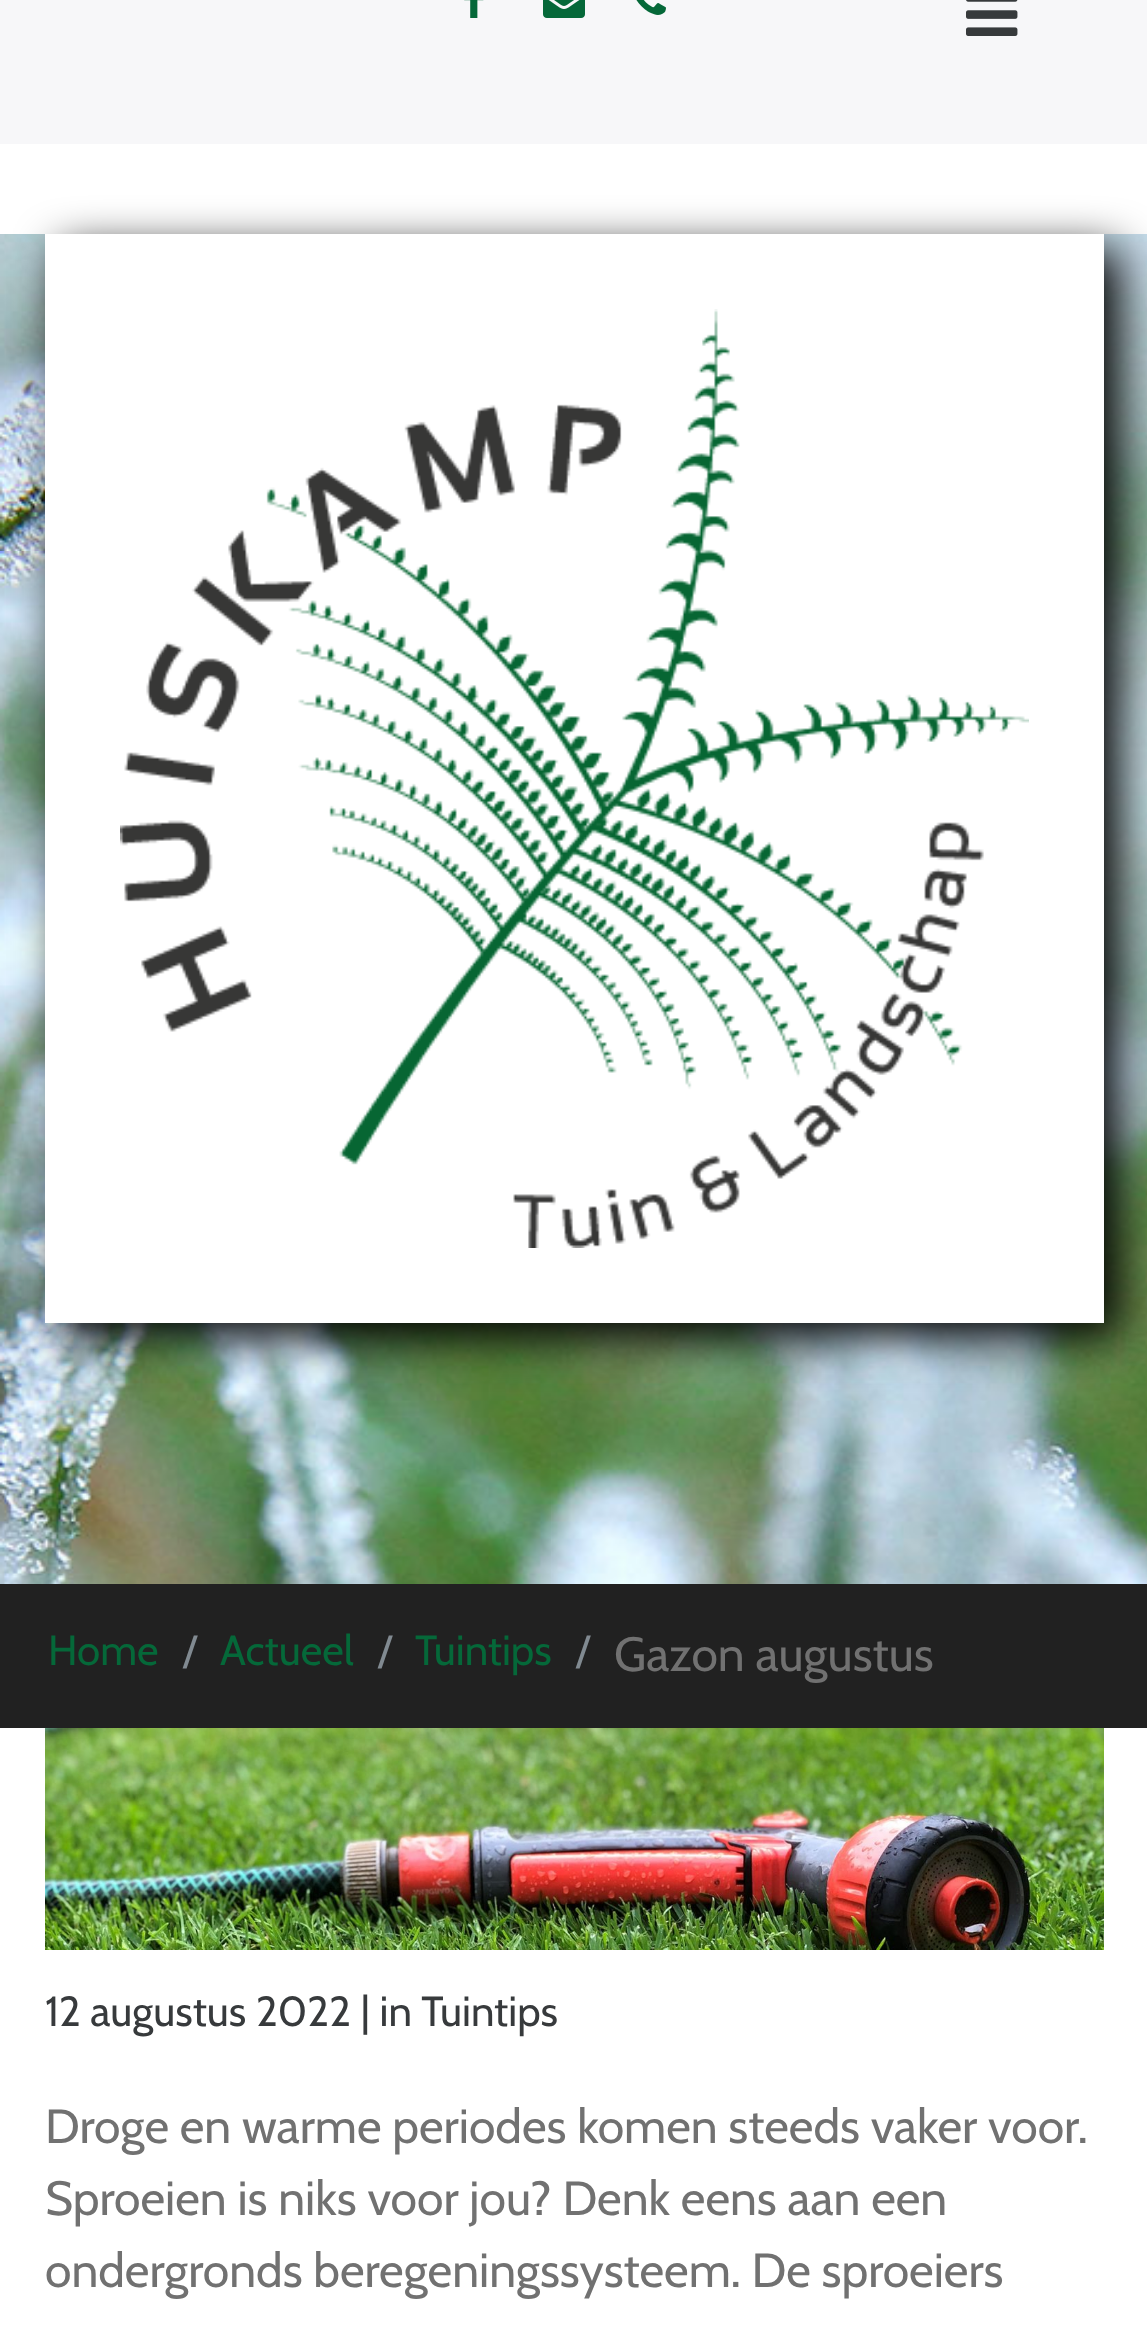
<!DOCTYPE html>
<meta charset="utf-8">
<style>body { margin: 0 } canvas { display: block }</style>
<canvas id="canvas" width="1147" height="2332"></canvas>
<script type="module">
  const canvas = document.getElementById("canvas");
  const g = canvas.getContext("2d");
  g.miterLimit = 4;
  g.fontKerning = "normal";
  function drawText(s, x, y, [font, color]) {
    g.font = font;
    g.fillStyle = color;
    g.fillText(s, x, y);
  }
  function fillBox(x, y, w, h, color) {
    g.fillStyle = color;
    g.fillRect(x, y, w, h);
  }
  async function drawPicture(src, x, y, w, h) {
    const img = new Image();
    img.src = src;
    await img.decode();
    g.drawImage(img, x, y, w, h);
  }

  const s1 = ["42px Cabin", "#056839"];
  const s2 = ["42px Cabin", "#818A91"];
  const s3 = ["48px Cabin", "#717171"];
  const s4 = ["42px Cabin", "#373A3C"];

  fillBox(0, 0, 1147, 2332, "#FFFFFF");
  fillBox(0, 0, 1147, 144, "#F7F7F9");
  await drawPicture("pic1.png", 464, 0, 20, 18);
  await drawPicture("pic2.png", 543, 0, 42, 18);
  await drawPicture("pic3.png", 636, 0, 30, 15);
  await drawPicture("pic4.png", 966, 0, 52, 36);
  await drawPicture("pic5.png", 0, 234, 1147, 1350);
  g.fillStyle = "#000000";
  g.filter = "blur(22.5px)";
  g.beginPath();
  g.rect(60, 249, 1059, 1089);
  g.fill();
  g.filter = "none";
  fillBox(45, 234, 1059, 1089, "#FFFFFF");
  await drawPicture("pic6.png", 120, 309, 909, 939);
  fillBox(0, 1584, 1147, 144, "#212121");
  drawText("Home", 48, 1665, s1);
  drawText("/", 183, 1665, s2);
  drawText("Actueel", 220, 1665, s1);
  drawText("/", 378, 1665, s2);
  drawText("Tuintips", 415, 1665, s1);
  drawText("/", 576, 1665, s2);
  drawText("Gazon augustus", 614, 1671, s3);
  await drawPicture("pic7.png", 45, 1728, 1059, 222);
  drawText("12 augustus 2022 | in Tuintips", 45, 2026, s4);
  drawText("Droge en warme periodes komen steeds vaker voor.", 45, 2143, s3);
  drawText("Sproeien is niks voor jou? Denk eens aan een", 45, 2215, s3);
  drawText("ondergronds beregeningssysteem. De sproeiers", 45, 2287, s3);
</script>
